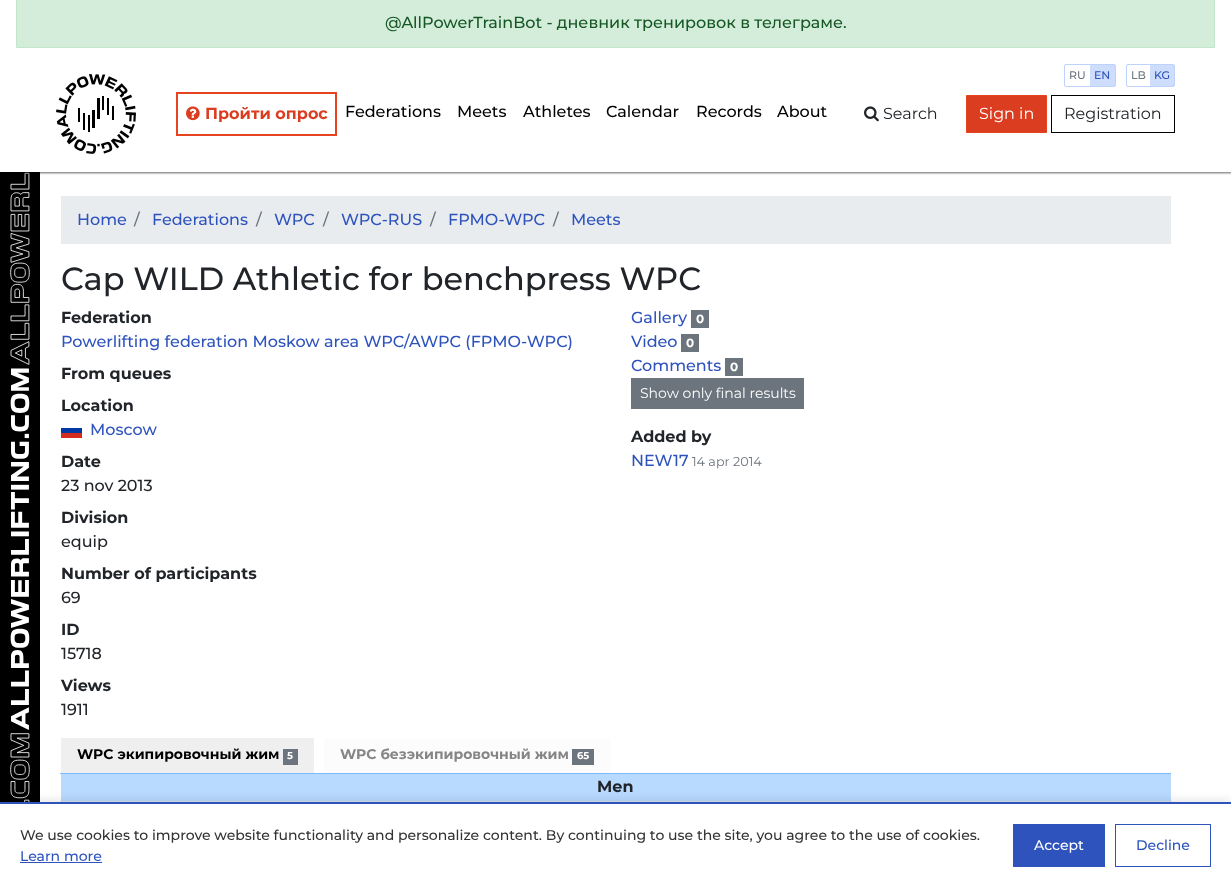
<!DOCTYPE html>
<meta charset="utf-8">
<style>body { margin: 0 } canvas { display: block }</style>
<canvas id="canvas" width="1231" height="887"></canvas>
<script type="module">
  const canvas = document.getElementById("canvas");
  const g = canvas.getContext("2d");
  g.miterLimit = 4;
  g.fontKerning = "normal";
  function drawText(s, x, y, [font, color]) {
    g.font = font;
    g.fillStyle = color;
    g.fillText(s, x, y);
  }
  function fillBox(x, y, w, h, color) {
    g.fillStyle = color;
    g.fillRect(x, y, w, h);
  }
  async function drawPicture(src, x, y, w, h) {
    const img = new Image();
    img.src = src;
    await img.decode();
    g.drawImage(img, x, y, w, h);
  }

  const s1 = ["500 16px Montserrat", "#155724"];
  const s2 = ["bold 16px Montserrat", "#DA3D20"];
  const s3 = ["500 16px Montserrat", "#000000"];
  const s4 = ["500 11px Montserrat", "#6C757D"];
  const s5 = ["500 11px Montserrat", "#2E53BD"];
  const s6 = ["16px Montserrat", "#212529"];
  const s7 = ["16px Montserrat", "#FFFFFF"];
  const s8 = ["500 16px Montserrat", "#2E53BD"];
  const s9 = ["500 16px Montserrat", "#6C757D"];
  const s10 = ["500 32px Montserrat", "#212529"];
  const s11 = ["bold 16px Montserrat", "#212529"];
  const s12 = ["500 16px Montserrat", "#212529"];
  const s13 = ["bold 12px Montserrat", "#FFFFFF"];
  const s14 = ["14px Montserrat", "#FFFFFF"];
  const s15 = ["12.75px Montserrat", "#6C757D"];
  const s16 = ["bold 14px Montserrat", "#000000"];
  const s17 = ["bold 10px Montserrat", "#FFFFFF"];
  const s18 = ["bold 14px Montserrat", "#858585"];
  const s19 = ["500 14px Montserrat", "#333333"];
  const s20 = ["500 14px Montserrat", "#2E53BD"];
  const s21 = ["500 14px Montserrat", "#FFFFFF"];

  fillBox(0, 0, 1231, 887, "#FFFFFF");
  fillBox(0, 172, 40, 630, "#000000");
  await drawPicture("pic4.png", 10, 172, 20, 630);
  g.fillStyle = "rgba(0, 0, 0, 0.6)";
  g.filter = "blur(1px)";
  g.beginPath();
  g.rect(-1, -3, 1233, 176);
  g.fill();
  g.filter = "none";
  fillBox(0, 0, 1231, 172, "#FFFFFF");
  g.fillStyle = "#D4EDDA";
  g.beginPath();
  g.rect(16.5, -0.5, 1198, 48);
  g.fill();
  g.strokeStyle = "#C3E6CB";
  g.stroke();
  drawText("@AllPowerTrainBot - дневник тренировок в телеграме.", 385, 28, s1);
  await drawPicture("pic1.png", 56, 74, 80, 80);
  g.strokeStyle = "#E74320";
  g.lineWidth = 2;
  g.strokeRect(177, 93, 159, 42);
  await drawPicture("pic2.png", 186, 106, 14, 15);
  drawText("Пройти опрос", 205, 119, s2);
  drawText("Federations", 345, 117, s3);
  drawText("Meets", 457, 117, s3);
  drawText("Athletes", 523, 117, s3);
  drawText("Calendar", 606, 117, s3);
  drawText("Records", 696, 117, s3);
  drawText("About", 777, 117, s3);
  g.beginPath();
  g.roundRect(1064.5, 64.5, 51, 22, 1.5);
  g.strokeStyle = "#BED3FB";
  g.lineWidth = 1;
  g.stroke();
  drawText("RU", 1069, 79, s4);
  fillBox(1090, 65, 25, 21, "rgba(92, 144, 245, 0.3)");
  drawText("EN", 1094, 79, s5);
  g.beginPath();
  g.roundRect(1126.5, 64.5, 48, 22, 1.5);
  g.stroke();
  drawText("LB", 1131, 79, s4);
  fillBox(1150, 65, 24, 21, "rgba(92, 144, 245, 0.3)");
  drawText("KG", 1154, 79, s5);
  await drawPicture("pic3.png", 864, 106, 15, 16);
  drawText("Search", 883, 119, s6);
  g.fillStyle = "#DA3D20";
  g.beginPath();
  g.rect(966.5, 95.5, 80, 37);
  g.fill();
  g.strokeStyle = "#E74320";
  g.stroke();
  drawText("Sign in", 979, 119, s7);
  g.strokeStyle = "#000000";
  g.strokeRect(1051.5, 95.5, 123, 37);
  drawText("Registration", 1064, 119, s6);
  fillBox(61, 196, 1110, 48, "#E9ECEF");
  drawText("Home", 77, 225, s8);
  drawText("/", 134, 225, s9);
  drawText("Federations", 152, 225, s8);
  drawText("/", 256, 225, s9);
  drawText("WPC", 274, 225, s8);
  drawText("/", 323, 225, s9);
  drawText("WPC-RUS", 341, 225, s8);
  drawText("/", 430, 225, s9);
  drawText("FPMO-WPC", 448, 225, s8);
  drawText("/", 553, 225, s9);
  drawText("Meets", 571, 225, s8);
  drawText("Cap WILD Athletic for benchpress WPC", 61, 290, s10);
  drawText("Federation", 61, 323, s11);
  drawText("Powerlifting federation Moskow area WPC/AWPC (FPMO-WPC)", 61, 347, s8);
  drawText("From queues", 61, 379, s11);
  drawText("Location", 61, 411, s11);
  fillBox(61, 428, 21, 5, "#0039A6");
  fillBox(61, 433, 21, 5, "#D52B1E");
  drawText("Moscow", 90, 435, s8);
  drawText("Date", 61, 467, s11);
  drawText("23 nov 2013", 61, 491, s12);
  drawText("Division", 61, 523, s11);
  drawText("equip", 61, 547, s12);
  drawText("Number of participants", 61, 579, s11);
  drawText("69", 61, 603, s12);
  drawText("ID", 61, 635, s11);
  drawText("15718", 61, 659, s12);
  drawText("Views", 61, 691, s11);
  drawText("1911", 61, 715, s12);
  drawText("Gallery", 631, 323, s8);
  fillBox(691, 310, 18, 18, "#6C757D");
  drawText("0", 696, 323, s13);
  drawText("Video", 631, 347, s8);
  fillBox(681, 334, 18, 18, "#6C757D");
  drawText("0", 686, 347, s13);
  drawText("Comments", 631, 371, s8);
  fillBox(725, 358, 18, 18, "#6C757D");
  drawText("0", 730, 371, s13);
  fillBox(631, 378, 173, 31, "#6C757D");
  drawText("Show only final results", 640, 398, s14);
  drawText("Added by", 631, 442, s11);
  drawText("NEW17", 631, 466, s8);
  drawText("14 apr 2014", 692, 466, s15);
  fillBox(61, 738, 253, 35, "#EFEFEF");
  drawText("WPC экипировочный жим", 77, 759, s16);
  fillBox(283, 749, 15, 16, "#6C757D");
  drawText("5", 287, 759, s17);
  fillBox(324, 738, 286, 35, "#FCFCFC");
  drawText("WPC безэкипировочный жим", 340, 759, s18);
  fillBox(572, 749, 22, 16, "#6C757D");
  drawText("65", 577, 759, s17);
  fillBox(61, 774, 1110, 27, "#B8DAFF");
  fillBox(60, 773, 1111, 1, "#7ABAFF");
  fillBox(60, 801, 1112, 1, "#DEE2E6");
  drawText("Men", 597, 792, s11);
  g.fillStyle = "rgba(0, 0, 0, 0.1)";
  g.filter = "blur(5px)";
  g.beginPath();
  g.rect(0, 800, 1231, 85);
  g.fill();
  g.filter = "none";
  fillBox(0, 804, 1231, 83, "#FFFFFF");
  fillBox(0, 802, 1231, 2, "#2E53BD");
  drawText("We use cookies to improve website functionality and personalize content. By continuing to use the site, you agree to the use of cookies.", 20, 840, s19);
  drawText("Learn more", 20, 861, s20);
  fillBox(20, 862, 82, 1, "#2E53BD");
  fillBox(1013, 824, 92, 43, "#2E53BD");
  drawText("Accept", 1034, 850, s21);
  g.strokeStyle = "#2E53BD";
  g.strokeRect(1115.5, 824.5, 95, 42);
  drawText("Decline", 1136, 850, s20);
</script>
